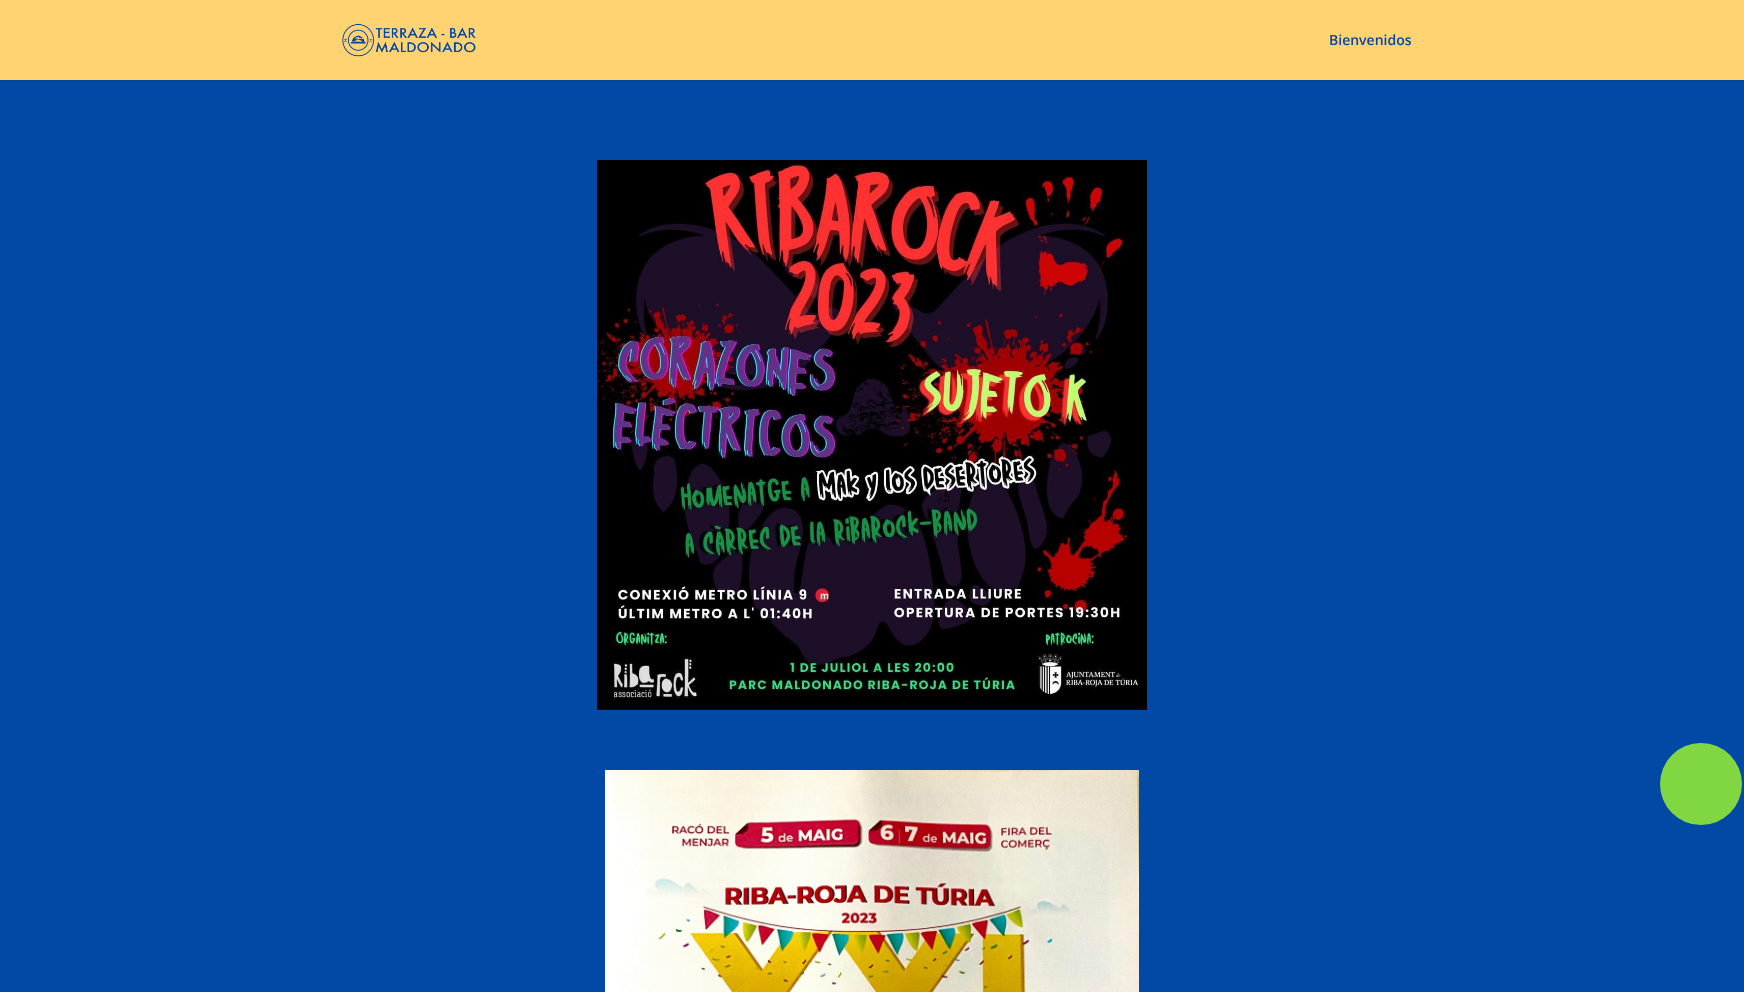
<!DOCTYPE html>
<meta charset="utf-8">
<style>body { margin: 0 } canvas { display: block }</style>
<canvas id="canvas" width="1744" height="992"></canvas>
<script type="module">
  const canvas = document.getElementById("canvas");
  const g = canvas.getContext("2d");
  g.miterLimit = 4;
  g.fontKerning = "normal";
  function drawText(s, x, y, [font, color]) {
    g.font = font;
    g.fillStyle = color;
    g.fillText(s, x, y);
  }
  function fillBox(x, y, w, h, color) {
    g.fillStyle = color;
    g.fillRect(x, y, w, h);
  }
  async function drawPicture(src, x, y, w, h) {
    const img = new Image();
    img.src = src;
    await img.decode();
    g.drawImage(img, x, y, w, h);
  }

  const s1 = ["600 14px Open Sans", "#0149A4"];

  fillBox(0, 0, 1744, 992, "#0149A4");
  fillBox(0, 80, 1744, 1, "#014294");
  fillBox(0, 0, 1744, 80, "#FFD272");
  await drawPicture("pic1.png", 342, 23, 134, 34);
  drawText("Bienvenidos", 1329, 45, s1);
  await drawPicture("pic2.png", 597, 160, 550, 550);
  await drawPicture("pic3.png", 605, 770, 534, 222);
  g.fillStyle = "#81D742";
  g.beginPath();
  g.arc(1701, 784, 41, 0, Math.PI * 2);
  g.fill();
</script>
